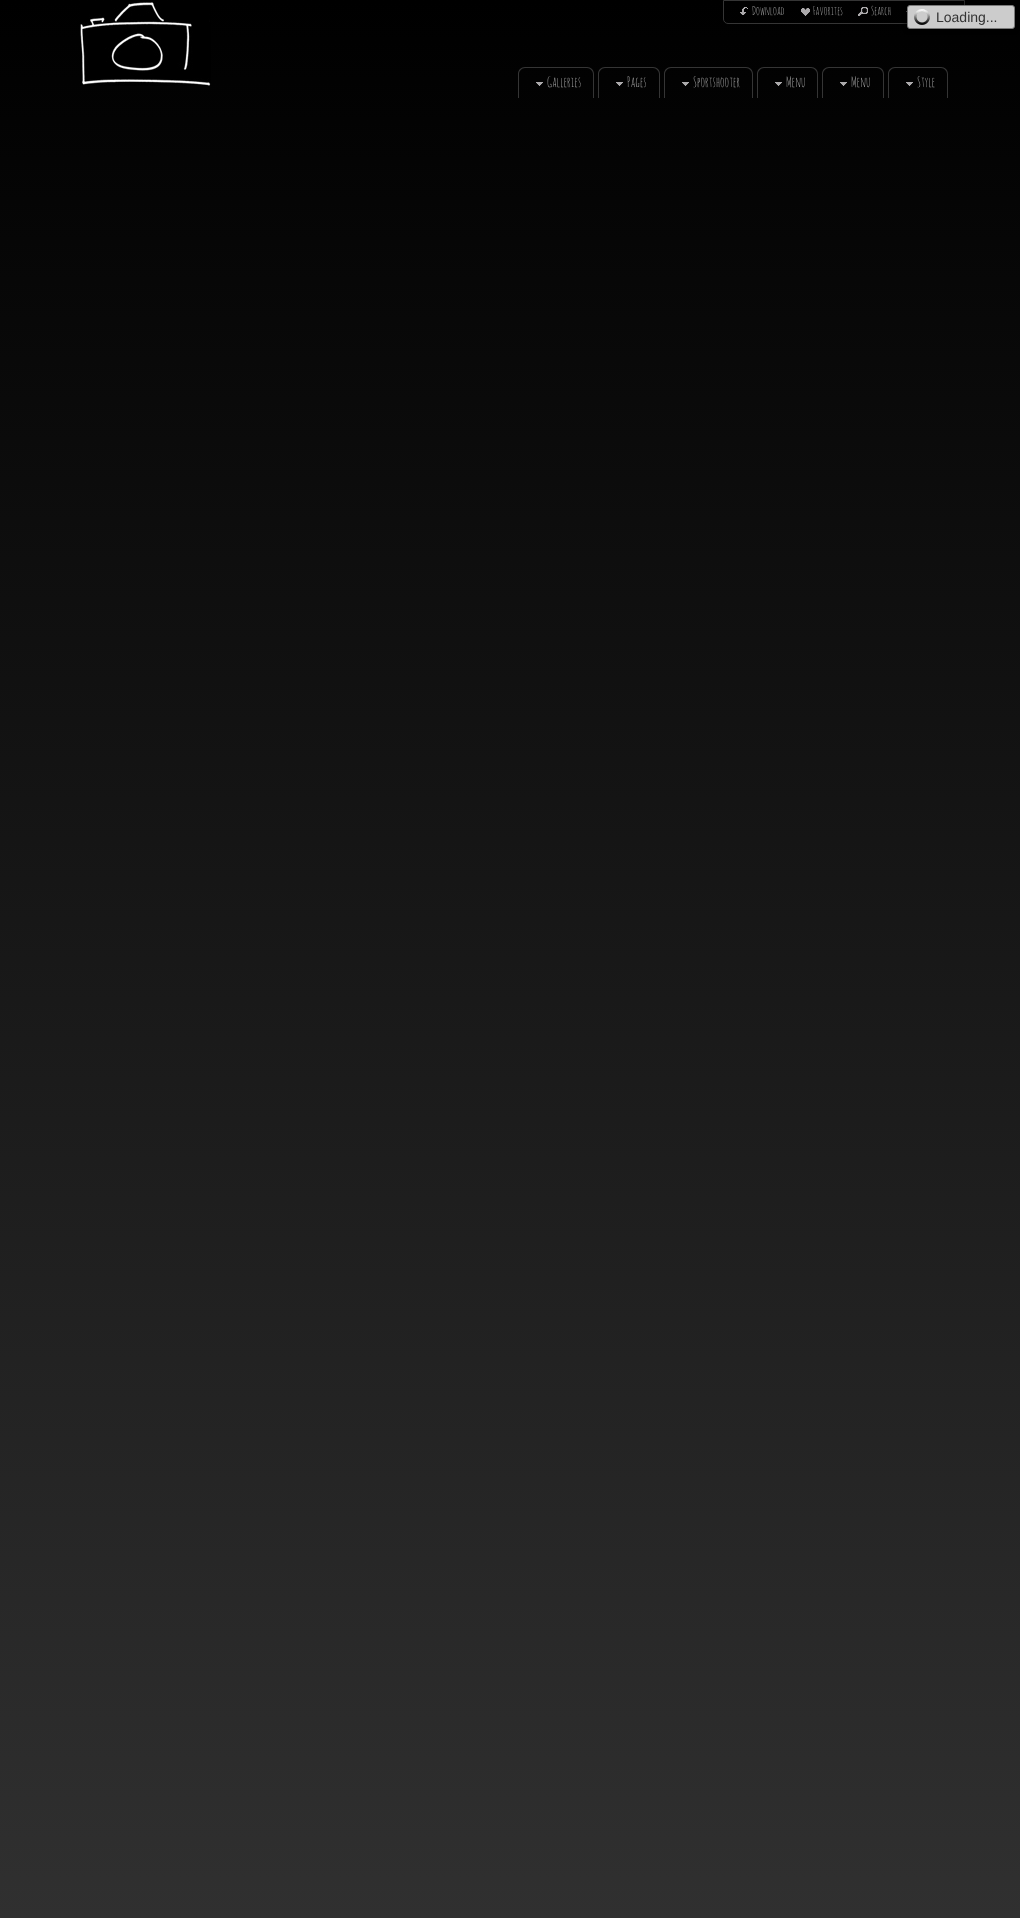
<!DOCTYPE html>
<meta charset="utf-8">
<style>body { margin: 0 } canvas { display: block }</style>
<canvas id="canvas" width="1020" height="1918"></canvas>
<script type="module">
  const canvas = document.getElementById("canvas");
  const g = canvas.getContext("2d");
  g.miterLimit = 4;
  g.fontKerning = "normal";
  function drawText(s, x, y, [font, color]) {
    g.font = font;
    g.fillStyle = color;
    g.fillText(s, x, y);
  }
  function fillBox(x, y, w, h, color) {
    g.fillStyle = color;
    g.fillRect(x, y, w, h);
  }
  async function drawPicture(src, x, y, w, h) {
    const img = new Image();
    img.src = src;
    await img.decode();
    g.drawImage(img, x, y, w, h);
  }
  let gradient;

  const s1 = ["12px Amatic SC", "#AAAAAA"];
  const s2 = ["14px Amatic SC", "#AAAAAA"];
  const s3 = ["14px Liberation Sans", "#333333"];

  fillBox(0, 0, 1020, 1918, "#FFFFFF");
  gradient = g.createLinearGradient(510, 0, 510, 1918);
  gradient.addColorStop(0, "#000000");
  gradient.addColorStop(1, "#303030");
  g.fillStyle = gradient;
  g.fillRect(0, 0, 1020, 1918);
  await drawPicture("pic1.png", 80, 2, 131, 84);
  g.beginPath();
  g.roundRect(723.5, 0.5, 241, 23, [0, 0, 4.5, 4.5]);
  g.strokeStyle = "#353535";
  g.stroke();
  await drawPicture("pic2.png", 740, 7, 8, 8);
  drawText("Download", 752, 15, s1);
  await drawPicture("pic3.png", 801, 8, 9, 8);
  drawText("Favorites", 813, 15, s1);
  await drawPicture("pic4.png", 858, 7, 10, 9);
  drawText("Search", 871, 15, s1);
  await drawPicture("pic5.png", 906, 11, 1, 1);
  g.fillStyle = "#353535";
  g.beginPath();
  g.moveTo(525, 67);
  g.lineTo(587, 67);
  g.bezierCurveTo(591, 67, 594, 70, 594, 74);
  g.lineTo(594, 98);
  g.lineTo(518, 98);
  g.lineTo(518, 74);
  g.bezierCurveTo(518, 70, 521, 67, 525, 67);
  g.closePath();
  g.moveTo(525, 68);
  g.lineTo(587, 68);
  g.bezierCurveTo(590, 68, 593, 71, 593, 74);
  g.lineTo(593, 98);
  g.lineTo(519, 98);
  g.lineTo(519, 74);
  g.bezierCurveTo(519, 71, 522, 68, 525, 68);
  g.closePath();
  g.fill("evenodd");
  await drawPicture("pic6.png", 536, 82, 7, 4);
  drawText("Galleries", 547, 87, s2);
  g.fillStyle = "#353535";
  g.beginPath();
  g.moveTo(605, 67);
  g.lineTo(653, 67);
  g.bezierCurveTo(657, 67, 660, 70, 660, 74);
  g.lineTo(660, 98);
  g.lineTo(598, 98);
  g.lineTo(598, 74);
  g.bezierCurveTo(598, 70, 601, 67, 605, 67);
  g.closePath();
  g.moveTo(605, 68);
  g.lineTo(653, 68);
  g.bezierCurveTo(656, 68, 659, 71, 659, 74);
  g.lineTo(659, 98);
  g.lineTo(599, 98);
  g.lineTo(599, 74);
  g.bezierCurveTo(599, 71, 602, 68, 605, 68);
  g.closePath();
  g.fill("evenodd");
  await drawPicture("pic6.png", 616, 82, 7, 4);
  drawText("Pages", 627, 87, s2);
  g.fillStyle = "#353535";
  g.beginPath();
  g.moveTo(671, 67);
  g.lineTo(746, 67);
  g.bezierCurveTo(750, 67, 753, 70, 753, 74);
  g.lineTo(753, 98);
  g.lineTo(664, 98);
  g.lineTo(664, 74);
  g.bezierCurveTo(664, 70, 667, 67, 671, 67);
  g.closePath();
  g.moveTo(671, 68);
  g.lineTo(746, 68);
  g.bezierCurveTo(749, 68, 752, 71, 752, 74);
  g.lineTo(752, 98);
  g.lineTo(665, 98);
  g.lineTo(665, 74);
  g.bezierCurveTo(665, 71, 668, 68, 671, 68);
  g.closePath();
  g.fill("evenodd");
  await drawPicture("pic6.png", 682, 82, 7, 4);
  drawText("Sportshooter", 693, 87, s2);
  g.fillStyle = "#353535";
  g.beginPath();
  g.moveTo(764, 67);
  g.lineTo(811, 67);
  g.bezierCurveTo(815, 67, 818, 70, 818, 74);
  g.lineTo(818, 98);
  g.lineTo(757, 98);
  g.lineTo(757, 74);
  g.bezierCurveTo(757, 70, 760, 67, 764, 67);
  g.closePath();
  g.moveTo(764, 68);
  g.lineTo(811, 68);
  g.bezierCurveTo(814, 68, 817, 71, 817, 74);
  g.lineTo(817, 98);
  g.lineTo(758, 98);
  g.lineTo(758, 74);
  g.bezierCurveTo(758, 71, 761, 68, 764, 68);
  g.closePath();
  g.fill("evenodd");
  await drawPicture("pic6.png", 775, 82, 7, 4);
  drawText("Menu", 786, 87, s2);
  g.fillStyle = "#353535";
  g.beginPath();
  g.moveTo(829, 67);
  g.lineTo(877, 67);
  g.bezierCurveTo(881, 67, 884, 70, 884, 74);
  g.lineTo(884, 98);
  g.lineTo(822, 98);
  g.lineTo(822, 74);
  g.bezierCurveTo(822, 70, 825, 67, 829, 67);
  g.closePath();
  g.moveTo(829, 68);
  g.lineTo(877, 68);
  g.bezierCurveTo(880, 68, 883, 71, 883, 74);
  g.lineTo(883, 98);
  g.lineTo(823, 98);
  g.lineTo(823, 74);
  g.bezierCurveTo(823, 71, 826, 68, 829, 68);
  g.closePath();
  g.fill("evenodd");
  await drawPicture("pic6.png", 840, 82, 7, 4);
  drawText("Menu", 851, 87, s2);
  g.fillStyle = "#353535";
  g.beginPath();
  g.moveTo(895, 67);
  g.lineTo(941, 67);
  g.bezierCurveTo(945, 67, 948, 70, 948, 74);
  g.lineTo(948, 98);
  g.lineTo(888, 98);
  g.lineTo(888, 74);
  g.bezierCurveTo(888, 70, 891, 67, 895, 67);
  g.closePath();
  g.moveTo(895, 68);
  g.lineTo(941, 68);
  g.bezierCurveTo(944, 68, 947, 71, 947, 74);
  g.lineTo(947, 98);
  g.lineTo(889, 98);
  g.lineTo(889, 74);
  g.bezierCurveTo(889, 71, 892, 68, 895, 68);
  g.closePath();
  g.fill("evenodd");
  await drawPicture("pic6.png", 906, 82, 7, 4);
  drawText("Style", 917, 87, s2);
  g.fillStyle = "rgba(0, 0, 0, 0.3)";
  g.filter = "blur(1.5px)";
  g.beginPath();
  g.roundRect(904, 2, 114, 30, 6);
  g.fill();
  g.filter = "none";
  g.fillStyle = "#CCCCCC";
  g.beginPath();
  g.roundRect(907.5, 5.5, 107, 23, 2.5);
  g.fill();
  g.strokeStyle = "#7A7A7A";
  g.stroke();
  await drawPicture("pic7.png", 914, 9, 16, 16);
  drawText("Loading...", 936, 22, s3);
</script>
